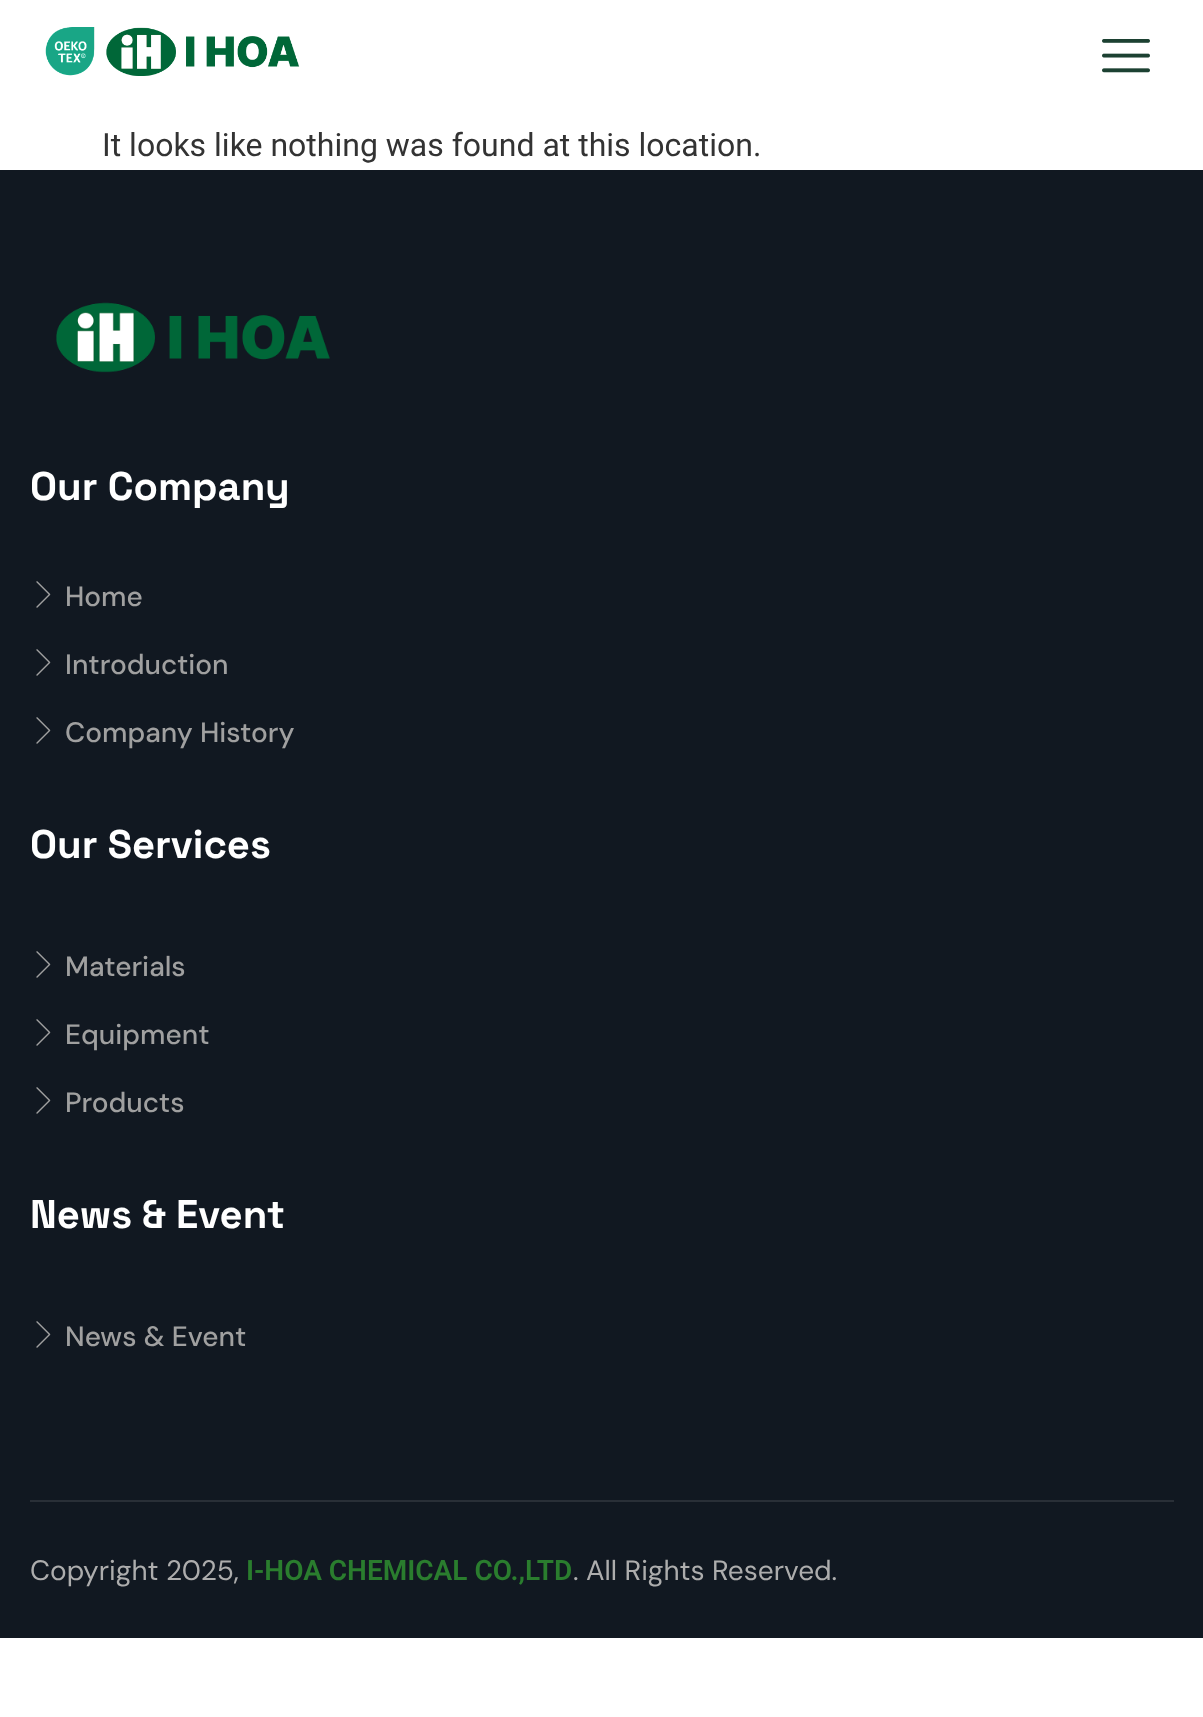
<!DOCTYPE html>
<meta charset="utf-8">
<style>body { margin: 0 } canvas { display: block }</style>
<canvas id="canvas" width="1203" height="1717"></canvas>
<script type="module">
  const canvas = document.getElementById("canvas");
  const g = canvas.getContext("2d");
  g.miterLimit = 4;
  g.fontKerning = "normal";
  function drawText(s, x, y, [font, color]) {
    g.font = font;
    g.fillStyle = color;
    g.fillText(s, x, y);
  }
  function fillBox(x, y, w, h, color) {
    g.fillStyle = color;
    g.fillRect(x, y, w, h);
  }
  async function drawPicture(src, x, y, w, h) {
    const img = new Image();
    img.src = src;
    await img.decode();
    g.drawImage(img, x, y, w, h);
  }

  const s1 = ["32px Roboto", "#333333"];
  const s2 = ["bold 40px Space Grotesk", "#FFFFFF"];
  const s3 = ["500 28px DM Sans", "#A0A0A0"];
  const s4 = ["28px DM Sans", "#ADADAD"];
  const s5 = ["600 28px Roboto", "#2A7D2E"];

  fillBox(0, 0, 1203, 1717, "#FFFFFF");
  await drawPicture("pic1.png", 45, 27, 255, 49);
  await drawPicture("pic2.png", 1102, 39, 48, 34);
  drawText("It looks like nothing was found at this location.", 102, 156, s1);
  fillBox(0, 170, 1203, 1468, "#111821");
  await drawPicture("pic3.png", 56, 302, 274, 71);
  drawText("Our Company", 30, 500, s2);
  await drawPicture("pic4.png", 36, 581, 15, 27);
  drawText("Home", 65, 606, s3);
  await drawPicture("pic4.png", 36, 649, 15, 27);
  drawText("Introduction", 65, 674, s3);
  await drawPicture("pic4.png", 36, 717, 15, 27);
  drawText("Company History", 65, 742, s3);
  drawText("Our Services", 30, 858, s2);
  await drawPicture("pic4.png", 36, 951, 15, 27);
  drawText("Materials", 65, 976, s3);
  await drawPicture("pic4.png", 36, 1019, 15, 27);
  drawText("Equipment", 65, 1044, s3);
  await drawPicture("pic4.png", 36, 1087, 15, 27);
  drawText("Products", 65, 1112, s3);
  drawText("News & Event", 30, 1228, s2);
  await drawPicture("pic4.png", 36, 1321, 15, 27);
  drawText("News & Event", 65, 1346, s3);
  fillBox(30, 1500, 1144, 2, "#292F37");
  drawText("Copyright 2025,", 30, 1580, s4);
  drawText("I-HOA CHEMICAL CO.,LTD", 246, 1580, s5);
  drawText(". All Rights Reserved.", 573, 1580, s4);
</script>
